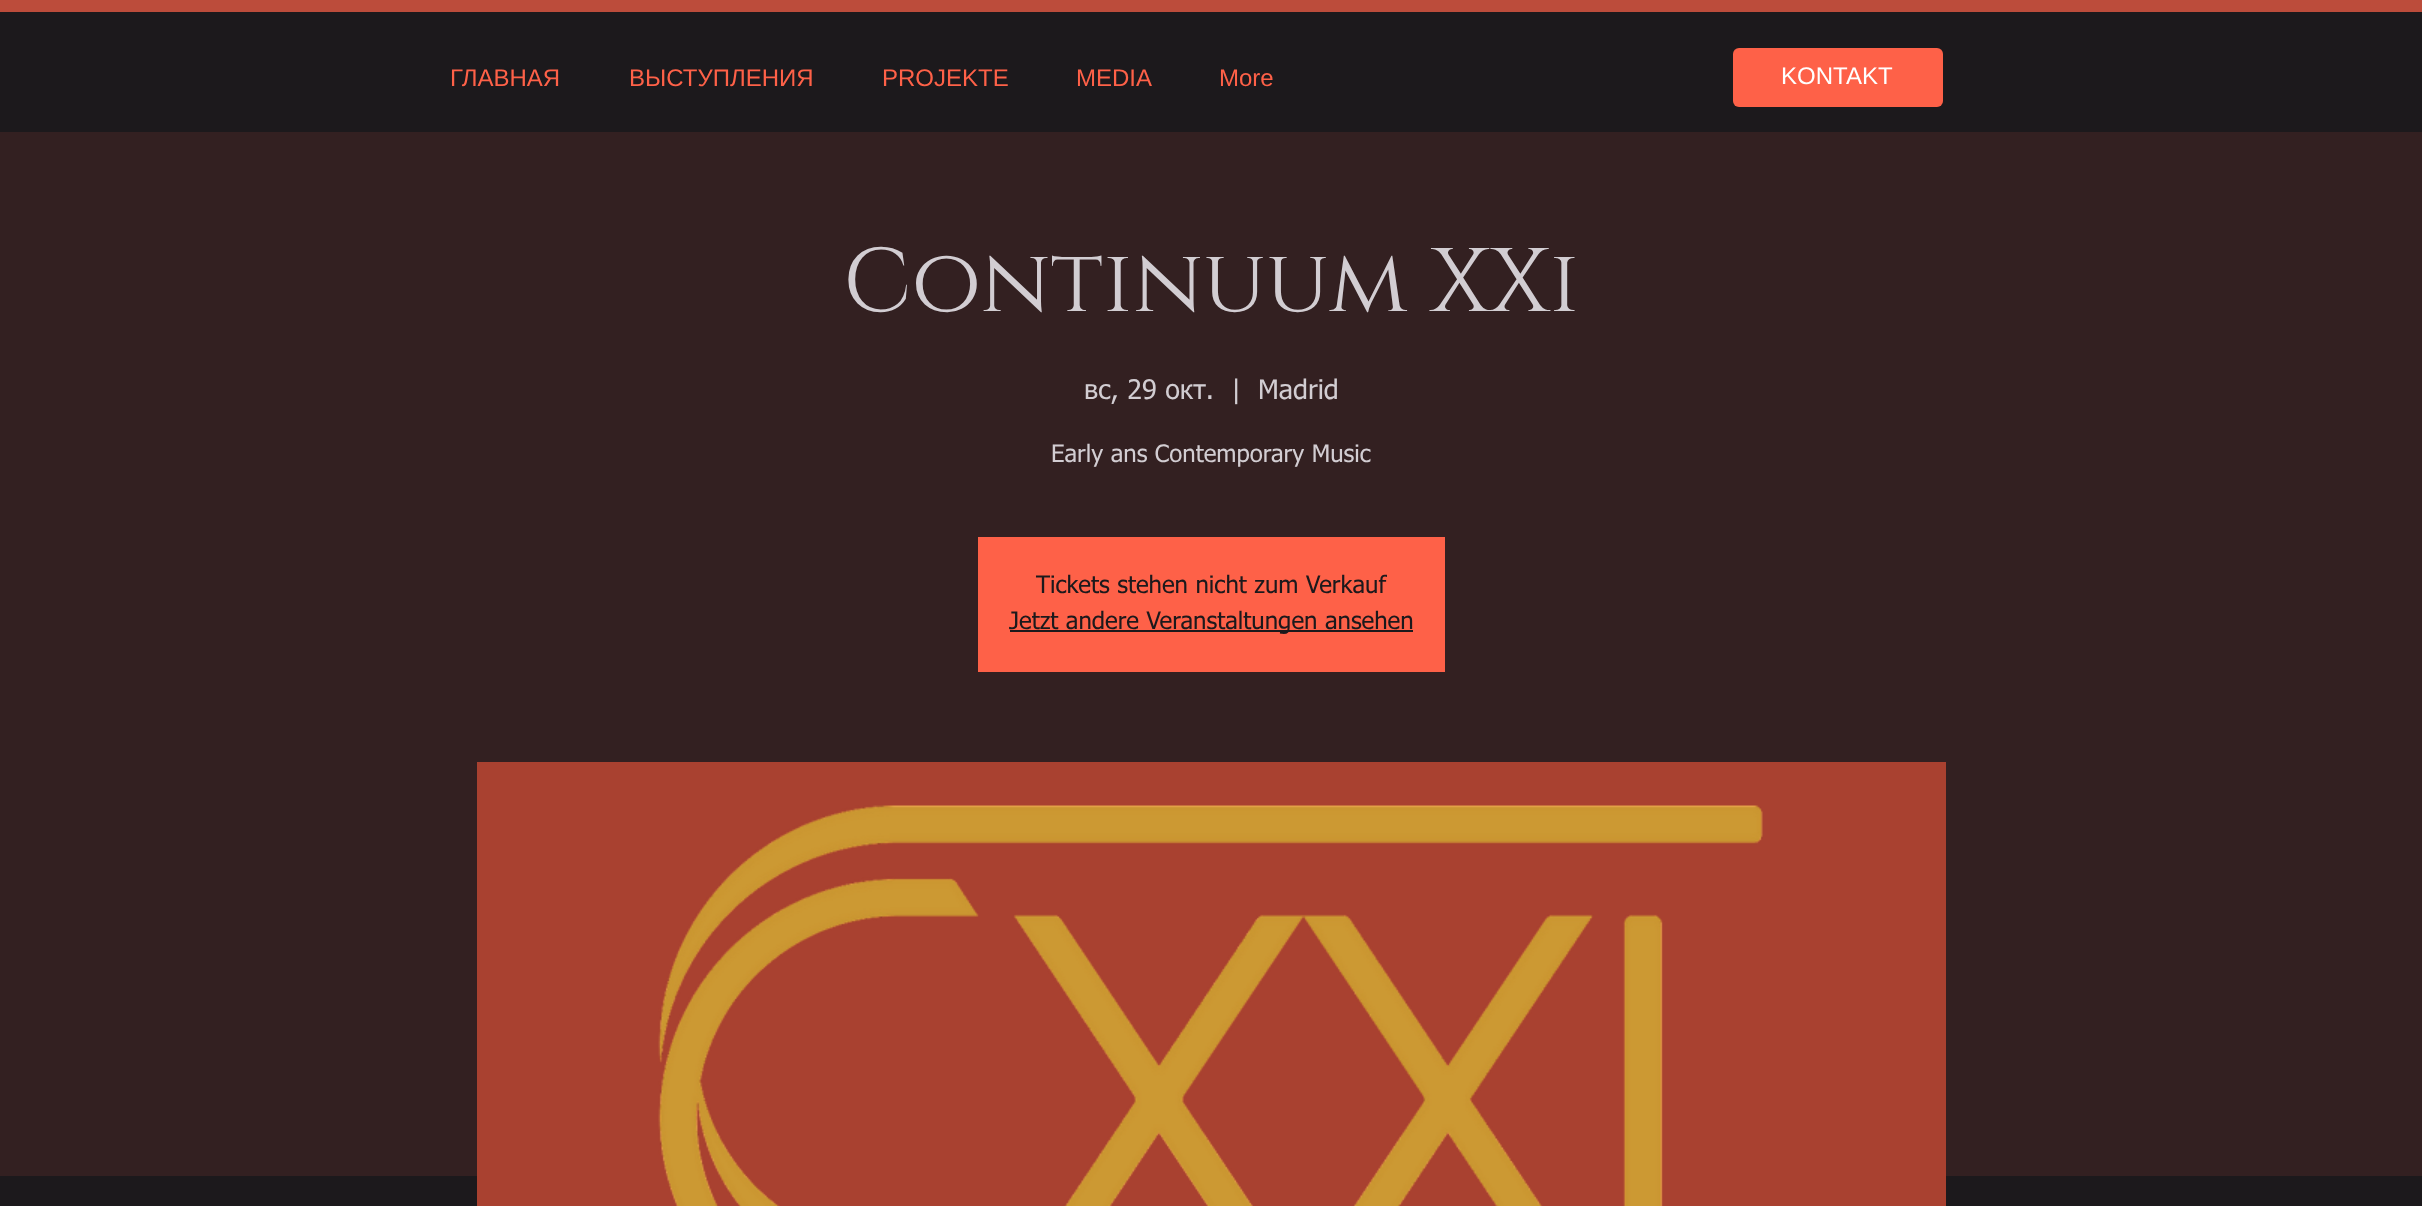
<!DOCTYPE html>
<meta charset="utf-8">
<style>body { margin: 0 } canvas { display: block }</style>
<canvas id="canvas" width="2422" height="1206"></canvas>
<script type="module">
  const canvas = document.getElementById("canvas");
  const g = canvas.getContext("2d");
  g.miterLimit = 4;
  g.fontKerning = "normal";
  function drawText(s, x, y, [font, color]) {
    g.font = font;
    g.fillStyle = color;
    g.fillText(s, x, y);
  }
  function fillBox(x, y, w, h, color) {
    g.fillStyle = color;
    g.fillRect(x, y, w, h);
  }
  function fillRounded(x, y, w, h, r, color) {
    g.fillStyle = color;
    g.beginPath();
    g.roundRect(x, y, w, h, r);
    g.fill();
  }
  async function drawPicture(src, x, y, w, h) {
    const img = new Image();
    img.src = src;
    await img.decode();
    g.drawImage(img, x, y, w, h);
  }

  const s1 = ["24px Liberation Sans", "#FE6148"];
  const s2 = ["24px Liberation Sans", "#FFFFFF"];
  const s3 = ["90px Cinzel", "#D2CDD2"];
  const s4 = ["27px tahoma", "#D2CDD2"];
  const s5 = ["24px tahoma", "#D2CDD2"];
  const s6 = ["24px tahoma", "#1C191C"];

  fillBox(0, 0, 2422, 1206, "#1C191C");
  fillBox(0, 0, 2422, 12, "#BC4C3B");
  drawText("ГЛАВНАЯ", 450, 86, s1);
  drawText("ВЫСТУПЛЕНИЯ", 629, 86, s1);
  drawText("PROJEKTE", 882, 86, s1);
  drawText("MEDIA", 1076, 86, s1);
  drawText("More", 1219, 86, s1);
  fillRounded(1733, 48, 210, 59, 6, "#FE6148");
  drawText("KONTAKT", 1781, 84, s2);
  fillBox(0, 132, 2422, 1044, "#332021");
  drawText("Continuum XXi", 843, 311, s3);
  drawText("вс, 29 окт.", 1084, 399, s4);
  drawText("|", 1231, 399, s4);
  drawText("Madrid", 1258, 399, s4);
  drawText("Early ans Contemporary Music", 1051, 462, s5);
  fillBox(978, 537, 467, 135, "#FE6148");
  drawText("Tickets stehen nicht zum Verkauf", 1036, 593, s6);
  fillBox(1010, 630, 403, 2, "#1C191C");
  drawText("Jetzt andere Veranstaltungen ansehen", 1009, 629, s6);
  fillBox(477, 762, 1469, 444, "#A94130");
  await drawPicture("pic1.png", 658, 805, 1105, 401);
</script>
